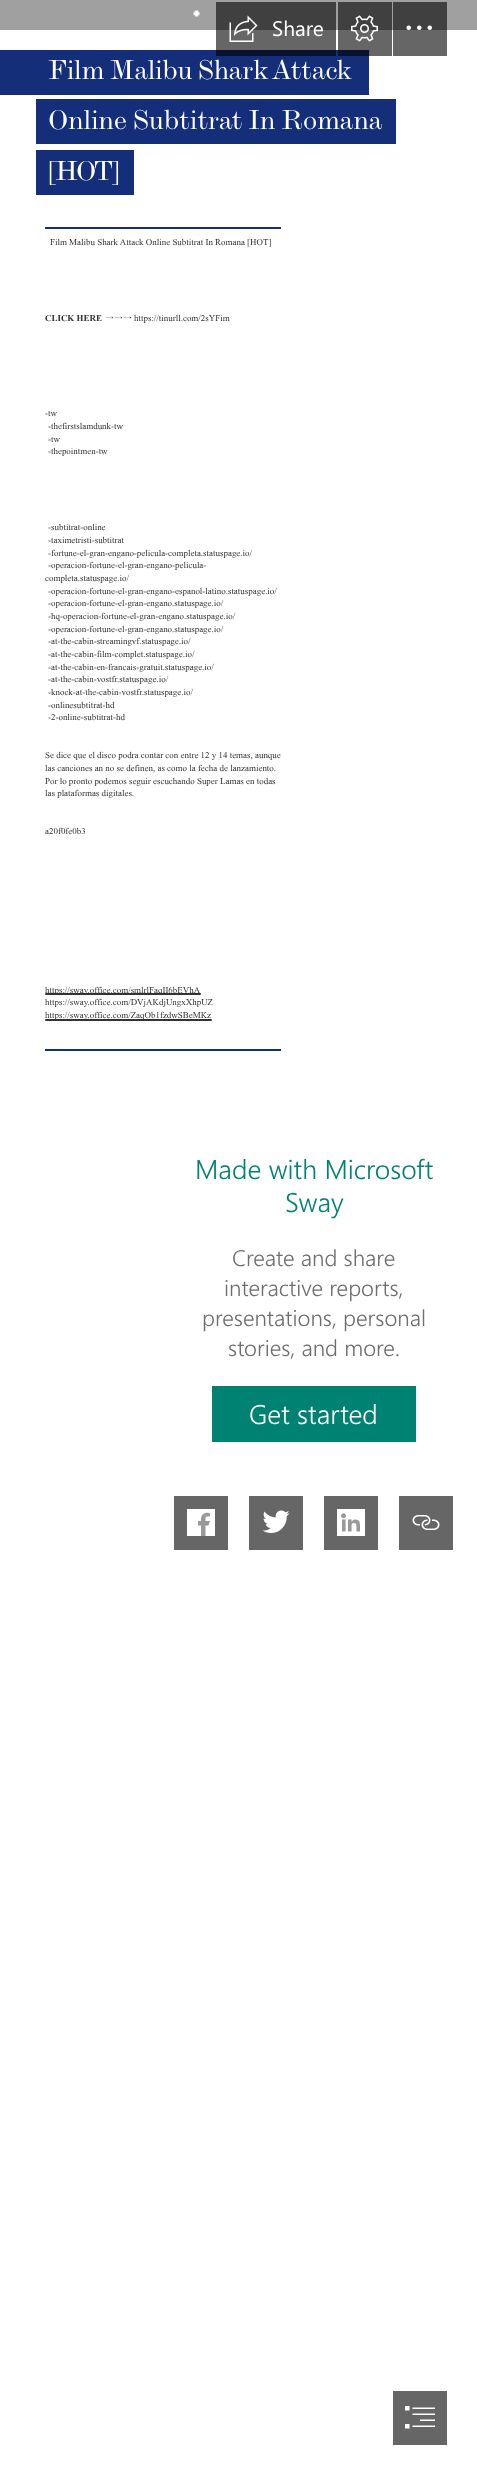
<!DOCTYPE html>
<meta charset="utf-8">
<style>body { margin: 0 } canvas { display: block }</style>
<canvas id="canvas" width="477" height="2476"></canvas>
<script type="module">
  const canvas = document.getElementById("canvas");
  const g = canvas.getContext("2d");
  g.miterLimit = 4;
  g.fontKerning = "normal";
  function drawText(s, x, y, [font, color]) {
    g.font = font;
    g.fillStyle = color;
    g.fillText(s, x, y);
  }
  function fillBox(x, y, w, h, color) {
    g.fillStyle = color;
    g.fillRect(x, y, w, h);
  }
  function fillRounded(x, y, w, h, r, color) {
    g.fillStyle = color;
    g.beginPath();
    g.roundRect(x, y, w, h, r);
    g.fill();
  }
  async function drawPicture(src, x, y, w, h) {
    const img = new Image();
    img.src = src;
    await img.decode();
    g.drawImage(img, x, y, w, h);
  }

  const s1 = ["21px Segoe UI", "#FFFFFF"];
  const s2 = ["28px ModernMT", "#FFFFFF"];
  const s3 = ["8.95px Times New Roman", "#333333"];
  const s4 = ["bold 8.95px Times New Roman", "#333333"];
  const s5 = ["8.95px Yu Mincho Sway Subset", "#333333"];
  const s6 = ["300 27px Segoe UI", "#008272"];
  const s7 = ["300 22.5px Segoe UI", "#6E6E6E"];
  const s8 = ["300 27px Segoe UI", "#FFFFFF"];

  fillBox(0, 0, 477, 2476, "#FFFFFF");
  fillBox(0, 0, 477, 30, "#A0A0A0");
  fillBox(216, 2, 120, 28, "#404040");
  fillBox(216, 30, 120, 20, "#666666");
  await drawPicture("pic1.png", 229, 15, 29, 27);
  drawText("Share", 272, 36, s1);
  fillBox(338, 2, 54, 28, "#404040");
  fillBox(338, 30, 54, 26, "#666666");
  await drawPicture("pic2.png", 351, 15, 27, 27);
  fillBox(393, 2, 54, 28, "#404040");
  await drawPicture("pic3.png", 406, 25, 26, 5);
  await drawPicture("pic4.png", 193, 10, 7, 7);
  fillBox(393, 30, 54, 26, "#666666");
  fillBox(0, 50, 369, 45, "#152E79");
  fillBox(338, 50, 31, 6, "#081230");
  fillBox(216, 50, 120, 6, "#081230");
  g.letterSpacing = "-0.5px";
  drawText("Film Malibu Shark Attack", 48, 79, s2);
  fillBox(36, 99, 360, 45, "#152E79");
  g.letterSpacing = "-0.35px";
  drawText("Online Subtitrat In Romana", 48, 129, s2);
  fillBox(36, 150, 98, 45, "#152E79");
  g.letterSpacing = "-2.5px";
  drawText("[HOT]", 48, 180, s2);
  fillBox(45, 227, 236, 2, "#152E79");
  g.letterSpacing = "0px";
  drawText("Film Malibu Shark Attack Online Subtitrat In Romana [HOT]", 50, 245, s3);
  drawText("CLICK HERE", 45, 321, s4);
  drawText("→→→", 105, 321, s5);
  drawText("https://tinurll.com/2sYFim", 134, 321, s3);
  drawText("-tw", 45, 416, s3);
  drawText("-thefirstslamdunk-tw", 48, 429, s3);
  drawText("-tw", 48, 442, s3);
  drawText("-thepointmen-tw", 48, 454, s3);
  drawText("-subtitrat-online", 48, 530, s3);
  drawText("-taximetristi-subtitrat", 48, 543, s3);
  drawText("-fortune-el-gran-engano-pelicula-completa.statuspage.io/", 48, 556, s3);
  drawText("-operacion-fortune-el-gran-engano-pelicula-", 48, 568, s3);
  drawText("completa.statuspage.io/", 45, 581, s3);
  drawText("-operacion-fortune-el-gran-engano-espanol-latino.statuspage.io/", 48, 594, s3);
  drawText("-operacion-fortune-el-gran-engano.statuspage.io/", 48, 606, s3);
  drawText("-hq-operacion-fortune-el-gran-engano.statuspage.io/", 48, 619, s3);
  drawText("-operacion-fortune-el-gran-engano.statuspage.io/", 48, 632, s3);
  drawText("-at-the-cabin-streamingvf.statuspage.io/", 48, 644, s3);
  drawText("-at-the-cabin-film-complet.statuspage.io/", 48, 657, s3);
  drawText("-at-the-cabin-en-francais-gratuit.statuspage.io/", 48, 670, s3);
  drawText("-at-the-cabin-vostfr.statuspage.io/", 48, 682, s3);
  drawText("-knock-at-the-cabin-vostfr.statuspage.io/", 48, 695, s3);
  drawText("-onlinesubtitrat-hd", 48, 708, s3);
  drawText("-2-online-subtitrat-hd", 48, 720, s3);
  drawText("Se dice que el disco podra contar con entre 12 y 14 temas, aunque", 45, 758, s3);
  drawText("las canciones an no se definen, as como la fecha de lanzamiento.", 45, 771, s3);
  drawText("Por lo pronto podemos seguir escuchando Super Lamas en todas", 45, 784, s3);
  drawText("las plataformas digitales.", 45, 796, s3);
  drawText("a20f0fe0b3", 45, 834, s3);
  fillRounded(45, 993, 156, 2, 1, "#333333");
  drawText("https://sway.office.com/smlrlFaqII6bEVhA", 45, 993, s3);
  drawText("https://sway.office.com/DVjAKdjUngxXhpUZ", 45, 1005, s3);
  fillRounded(45, 1019, 167, 2, 1, "#333333");
  drawText("https://sway.office.com/ZaqOb1fzdwSBeMKz", 45, 1018, s3);
  fillBox(45, 1049, 236, 2, "#152E79");
  drawText("Made with Microsoft", 195, 1179, s6);
  drawText("Sway", 285, 1212, s6);
  drawText("Create and share", 232, 1266, s7);
  drawText("interactive reports,", 224, 1296, s7);
  drawText("presentations, personal", 202, 1326, s7);
  drawText("stories, and more.", 228, 1356, s7);
  fillBox(212, 1386, 204, 56, "#008272");
  drawText("Get started", 249, 1424, s8);
  fillBox(174, 1496, 54, 54, "#666666");
  fillBox(187, 1509, 28, 27, "#FFFFFF");
  await drawPicture("pic5.png", 198, 1512, 12, 24);
  fillBox(249, 1496, 54, 54, "#666666");
  await drawPicture("pic6.png", 262, 1510, 28, 23);
  fillBox(324, 1496, 54, 54, "#666666");
  fillBox(337, 1509, 28, 27, "#FFFFFF");
  await drawPicture("pic7.png", 341, 1513, 19, 19);
  fillBox(399, 1496, 54, 54, "#666666");
  await drawPicture("pic8.png", 412, 1515, 28, 15);
  fillBox(393, 2391, 54, 54, "#666666");
  await drawPicture("pic9.png", 405, 2406, 30, 23);
</script>
